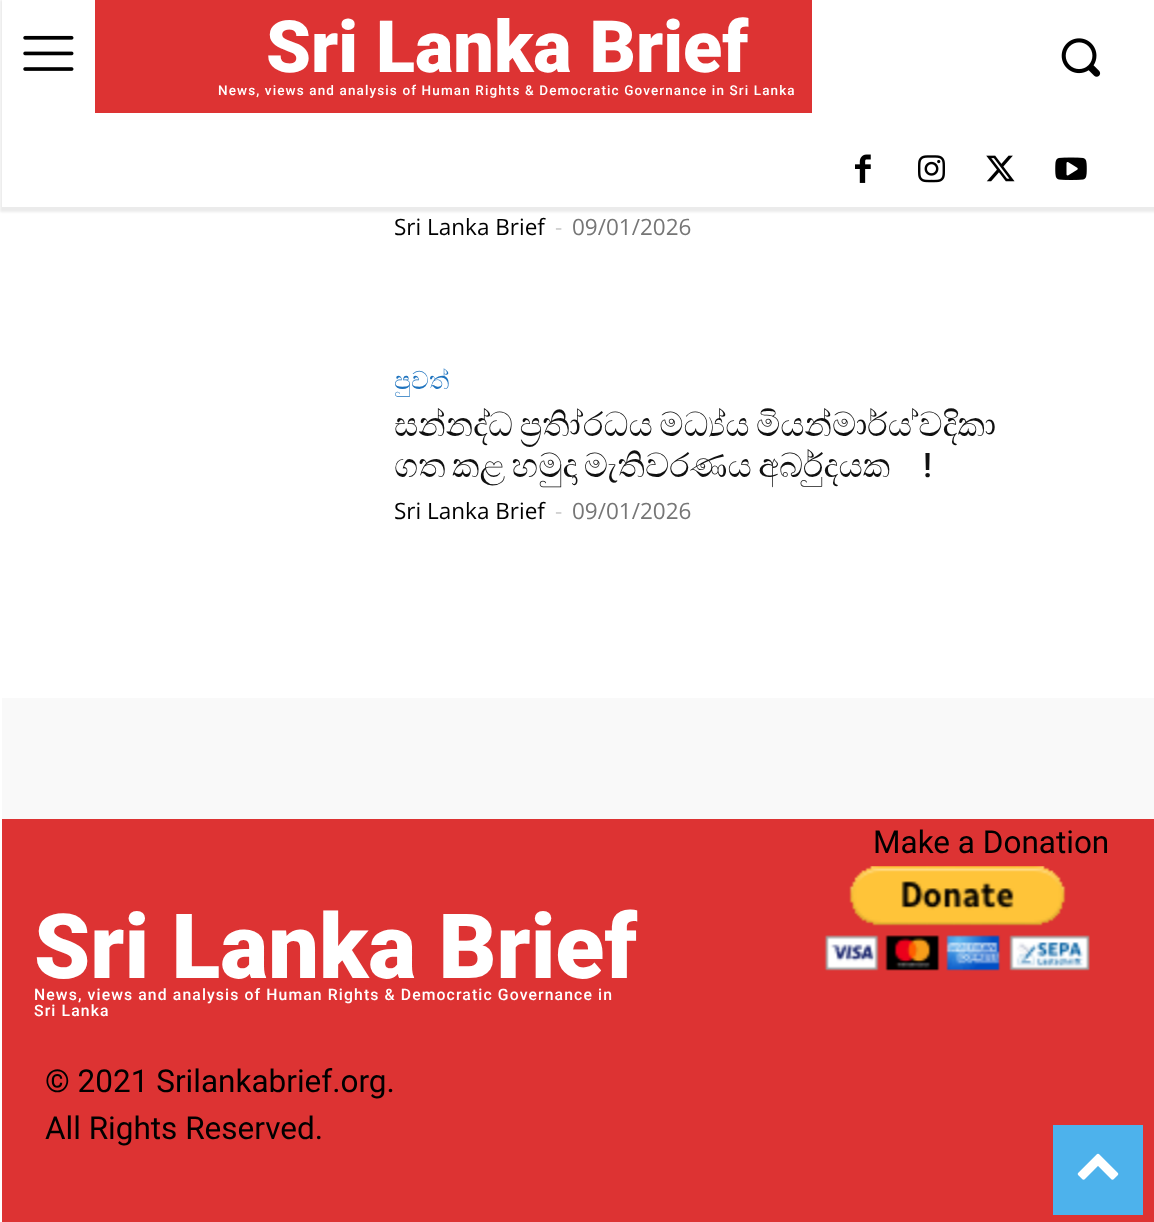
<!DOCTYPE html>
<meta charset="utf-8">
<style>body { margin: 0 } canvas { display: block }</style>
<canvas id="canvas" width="1154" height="1222"></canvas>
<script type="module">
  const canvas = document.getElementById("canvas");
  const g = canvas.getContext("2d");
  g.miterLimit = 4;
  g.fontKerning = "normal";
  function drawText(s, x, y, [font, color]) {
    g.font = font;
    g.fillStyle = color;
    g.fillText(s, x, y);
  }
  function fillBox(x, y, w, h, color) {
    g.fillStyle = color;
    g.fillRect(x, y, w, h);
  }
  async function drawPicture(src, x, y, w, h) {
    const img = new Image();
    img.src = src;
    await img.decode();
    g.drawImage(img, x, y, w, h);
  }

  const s1 = ["900 72px Roboto", "#FFFFFF"];
  const s2 = ["500 13.5px Roboto", "#FFFFFF"];
  const s3 = ["22.5px Open Sans", "#000000"];
  const s4 = ["22.5px Open Sans", "#CCCCCC"];
  const s5 = ["22.5px Open Sans", "#767676"];
  const s6 = ["25px FreeSerif", "#1E73BE"];
  const s7 = ["33.75px FreeSerif", "#111111"];
  const s8 = ["500 33.75px Roboto", "#111111"];
  const s9 = ["31.5px Roboto", "#000000"];
  const s10 = ["900 90px Roboto", "#FFFFFF"];
  const s11 = ["500 15.75px Roboto", "#FFFFFF"];

  fillBox(0, 0, 1154, 1222, "#FFFFFF");
  await drawPicture("pic1.png", 23, 35, 51, 36);
  fillBox(95, 0, 717, 113, "#DD3333");
  await drawPicture("pic2.png", 1061, 38, 40, 39);
  await drawPicture("pic3.png", 855, 154, 16, 29);
  await drawPicture("pic4.png", 918, 155, 27, 28);
  await drawPicture("pic5.png", 986, 155, 29, 27);
  await drawPicture("pic6.png", 1055, 157, 32, 23);
  g.save();
  g.beginPath();
  g.moveTo(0, 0);
  g.lineTo(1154, 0);
  g.lineTo(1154, 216);
  g.lineTo(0, 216);
  g.closePath();
  g.moveTo(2, 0);
  g.lineTo(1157, 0);
  g.lineTo(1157, 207);
  g.lineTo(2, 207);
  g.closePath();
  g.clip("evenodd");
  g.fillStyle = "rgba(0, 0, 0, 0.08)";
  g.filter = "blur(1px)";
  g.beginPath();
  g.rect(0, 0, 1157, 212);
  g.fill();
  g.filter = "none";
  g.restore();
  drawText("Sri Lanka Brief", 266, 72, s1);
  g.letterSpacing = "1.12px";
  drawText("News, views and analysis of Human Rights & Democratic Governance in Sri Lanka", 218, 95, s2);
  g.letterSpacing = "0px";
  drawText("Sri Lanka Brief", 394, 235, s3);
  drawText("-", 555, 235, s4);
  drawText("09/01/2026", 572, 235, s5);
  drawText("පුවත්", 394, 389, s6);
  g.wordSpacing = "-2px";
  drawText("සන්නද්ධ ප්‍රතිරෝධය මධ්‍යයේ මියන්මාරයේ වේදිකා", 394, 436, s7);
  drawText("ගත කළ හමුදා මැතිවරණය අර්බුදයක", 394, 477, s7);
  g.wordSpacing = "0px";
  drawText("!", 923, 477, s8);
  drawText("Sri Lanka Brief", 394, 519, s3);
  drawText("-", 555, 519, s4);
  drawText("09/01/2026", 572, 519, s5);
  fillBox(2, 698, 1152, 121, "#F9F9F9");
  fillBox(2, 819, 1152, 403, "#DD3333");
  drawText("Make a Donation", 873, 853, s9);
  await drawPicture("pic7.png", 824, 866, 266, 105);
  drawText("Sri Lanka Brief", 34, 978, s10);
  g.letterSpacing = "1.12px";
  drawText("News, views and analysis of Human Rights & Democratic Governance in", 34, 1000, s11);
  drawText("Sri Lanka", 34, 1016, s11);
  g.letterSpacing = "0px";
  drawText("© 2021 Srilankabrief.org.", 45, 1092, s9);
  drawText("All Rights Reserved.", 45, 1139, s9);
  fillBox(1053, 1125, 90, 90, "#4DB2EC");
  await drawPicture("pic8.png", 1077, 1153, 42, 27);
</script>
